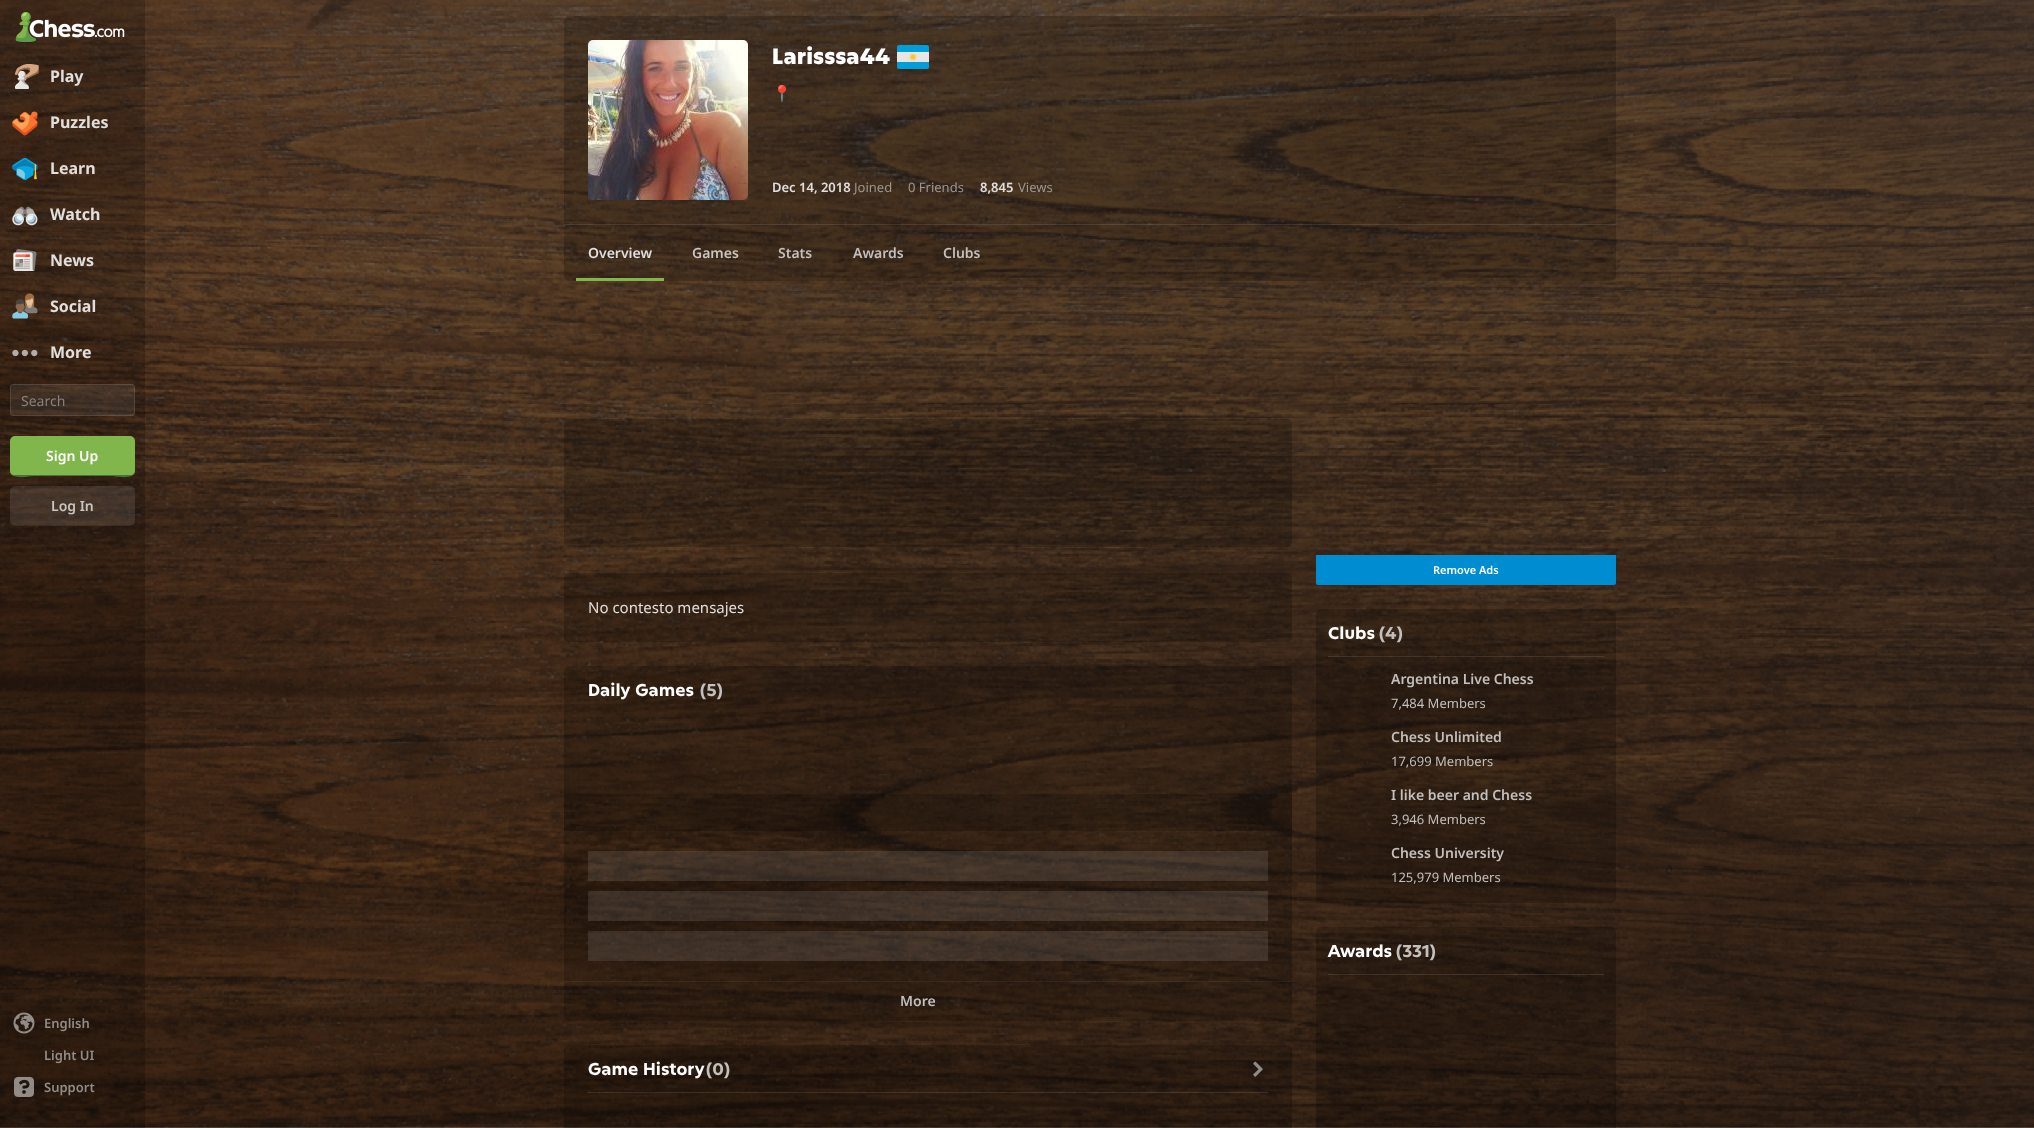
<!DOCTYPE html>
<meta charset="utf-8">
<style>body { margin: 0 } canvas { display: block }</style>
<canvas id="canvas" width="2034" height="1128"></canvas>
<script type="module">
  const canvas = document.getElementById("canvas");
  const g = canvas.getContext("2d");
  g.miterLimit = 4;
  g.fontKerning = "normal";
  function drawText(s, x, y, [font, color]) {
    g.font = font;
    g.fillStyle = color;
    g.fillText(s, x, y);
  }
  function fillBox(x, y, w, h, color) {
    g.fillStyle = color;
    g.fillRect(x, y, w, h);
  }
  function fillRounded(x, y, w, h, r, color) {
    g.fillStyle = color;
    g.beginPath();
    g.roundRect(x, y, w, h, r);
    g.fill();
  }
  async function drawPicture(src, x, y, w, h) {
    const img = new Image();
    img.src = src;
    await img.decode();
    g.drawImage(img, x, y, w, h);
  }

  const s1 = ["bold 16px Noto Sans", "#E1DEDC"];
  const s2 = ["14px Noto Sans", "#8A817C"];
  const s3 = ["600 14px Noto Sans", "#FFFFFF"];
  const s4 = ["600 14px Noto Sans", "#C9C5C0"];
  const s5 = ["600 13px Noto Sans", "#938B86"];
  const s6 = ["800 22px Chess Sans", "#FFFFFF"];
  const s7 = ["16px Noto Color Emoji", "#C9C5C0"];
  const s8 = ["600 13px Noto Sans", "#E1DEDC"];
  const s9 = ["13px Noto Sans", "#9F968E"];
  const s10 = ["600 14px Noto Sans", "#E1DEDC"];
  const s11 = ["600 14px Noto Sans", "#C3BFBD"];
  const s12 = ["15px Noto Sans", "#E1DEDC"];
  const s13 = ["bold 17px Chess Sans", "#FFFFFF"];
  const s14 = ["bold 17px Chess Sans", "#C3BFBD"];
  const s15 = ["600 11px Noto Sans", "#FFFFFF"];
  const s16 = ["13px Noto Sans", "#C3BFBD"];

  fillBox(0, 0, 2034, 1128, "#FFFFFF");
  await drawPicture("pic1.png", 0, 0, 2034, 1128);
  fillBox(0, 0, 145, 1128, "rgba(0, 0, 0, 0.2)");
  await drawPicture("pic2.png", 15, 12, 110, 30);
  await drawPicture("pic3.png", 15, 64, 24, 25);
  drawText("Play", 50, 82, s1);
  await drawPicture("pic4.png", 12, 111, 26, 25);
  drawText("Puzzles", 50, 128, s1);
  await drawPicture("pic5.png", 12, 158, 26, 22);
  drawText("Learn", 50, 174, s1);
  await drawPicture("pic6.png", 12, 206, 26, 20);
  drawText("Watch", 50, 220, s1);
  await drawPicture("pic7.png", 13, 249, 24, 22);
  drawText("News", 50, 266, s1);
  await drawPicture("pic8.png", 12, 293, 26, 26);
  drawText("Social", 50, 312, s1);
  await drawPicture("pic9.png", 12, 349, 26, 8);
  drawText("More", 50, 358, s1);
  fillRounded(10, 384, 125, 32, 3, "rgba(255, 255, 255, 0.08)");
  g.beginPath();
  g.roundRect(10.5, 384.5, 124, 31, 2.5);
  g.strokeStyle = "rgba(255, 255, 255, 0.1)";
  g.stroke();
  drawText("Search", 21, 406, s2);
  fillRounded(10, 436, 125, 40, 5, "#81B64C");
  g.fillStyle = "#45753C";
  g.beginPath();
  g.moveTo(10, 470);
  g.bezierCurveTo(10, 481, 30, 476, 34, 476);
  g.lineTo(111, 476);
  g.bezierCurveTo(115, 476, 135, 481, 135, 470);
  g.bezierCurveTo(135, 473, 133, 475, 130, 475);
  g.lineTo(15, 475);
  g.bezierCurveTo(12, 475, 10, 473, 10, 470);
  g.closePath();
  g.fill();
  drawText("Sign Up", 46, 461, s3);
  fillRounded(10, 486, 125, 40, 5, "rgba(255, 255, 255, 0.1)");
  g.fillStyle = "rgba(0, 0, 0, 0.1)";
  g.beginPath();
  g.moveTo(10, 520);
  g.bezierCurveTo(10, 531, 30, 526, 34, 526);
  g.lineTo(111, 526);
  g.bezierCurveTo(115, 526, 135, 531, 135, 520);
  g.bezierCurveTo(135, 523, 133, 525, 130, 525);
  g.lineTo(15, 525);
  g.bezierCurveTo(12, 525, 10, 523, 10, 520);
  g.closePath();
  g.fill();
  drawText("Log In", 51, 511, s4);
  await drawPicture("pic10.png", 13, 1012, 22, 22);
  drawText("English", 44, 1028, s5);
  drawText("Light UI", 44, 1060, s5);
  await drawPicture("pic11.png", 14, 1077, 20, 20);
  drawText("Support", 44, 1092, s5);
  g.fillStyle = "rgba(0, 0, 0, 0.2)";
  g.beginPath();
  g.roundRect(564, 16, 1052, 208, [5, 5, 0, 0]);
  g.fill();
  g.strokeStyle = "rgba(255, 255, 255, 0.05)";
  g.strokeRect(588.5, 40.5, 159, 159);
  await drawPicture("pic12.png", 588, 40, 160, 160);
  drawText("Larisssa44", 772, 64, s6);
  await drawPicture("pic13.png", 897, 45, 32, 24);
  drawText("📍", 772, 99, s7);
  drawText("Dec 14, 2018", 772, 192, s8);
  drawText("Joined", 854, 192, s9);
  drawText("0 Friends", 908, 192, s9);
  drawText("8,845", 980, 192, s8);
  drawText("Views", 1018, 192, s9);
  g.fillStyle = "rgba(0, 0, 0, 0.2)";
  g.beginPath();
  g.roundRect(564, 224, 1052, 57, [0, 0, 5, 5]);
  g.fill();
  fillBox(564, 224, 1052, 1, "rgba(255, 255, 255, 0.1)");
  fillBox(576, 278, 88, 3, "#81B64C");
  drawText("Overview", 588, 258, s10);
  drawText("Games", 692, 258, s4);
  drawText("Stats", 778, 258, s11);
  drawText("Awards", 853, 258, s11);
  drawText("Clubs", 943, 258, s11);
  fillRounded(564, 419, 728, 128, 5, "rgba(0, 0, 0, 0.2)");
  fillRounded(564, 573, 728, 69, 5, "rgba(0, 0, 0, 0.2)");
  drawText("No contesto mensajes", 588, 613, s12);
  fillRounded(564, 666, 728, 355, 5, "rgba(0, 0, 0, 0.2)");
  drawText("Daily Games", 588, 696, s13);
  drawText("(5)", 700, 696, s14);
  fillBox(564, 794, 728, 37, "rgba(0, 0, 0, 0.18)");
  fillBox(588, 851, 680, 30, "rgba(255, 255, 255, 0.1)");
  fillBox(588, 891, 680, 30, "rgba(255, 255, 255, 0.1)");
  fillBox(588, 931, 680, 30, "rgba(255, 255, 255, 0.1)");
  fillBox(564, 981, 728, 1, "rgba(255, 255, 255, 0.05)");
  drawText("More", 900, 1006, s11);
  fillRounded(564, 1045, 728, 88, 5, "rgba(0, 0, 0, 0.2)");
  drawText("Game History", 588, 1075, s13);
  drawText("(0)", 706, 1075, s14);
  await drawPicture("pic14.png", 1253, 1061, 10, 16);
  fillBox(588, 1092, 680, 1, "rgba(255, 255, 255, 0.1)");
  g.fillStyle = "#008CD1";
  g.beginPath();
  g.roundRect(1316, 555, 300, 30, [0, 0, 2, 2]);
  g.fill();
  drawText("Remove Ads", 1433, 574, s15);
  fillRounded(1316, 609, 300, 294, 5, "rgba(0, 0, 0, 0.2)");
  drawText("Clubs", 1328, 639, s13);
  drawText("(4)", 1379, 639, s14);
  fillBox(1328, 656, 276, 1, "rgba(255, 255, 255, 0.1)");
  drawText("Argentina Live Chess", 1391, 684, s11);
  drawText("7,484 Members", 1391, 708, s16);
  drawText("Chess Unlimited", 1391, 742, s11);
  drawText("17,699 Members", 1391, 766, s16);
  drawText("I like beer and Chess", 1391, 800, s11);
  drawText("3,946 Members", 1391, 824, s16);
  drawText("Chess University", 1391, 858, s11);
  drawText("125,979 Members", 1391, 882, s16);
  fillRounded(1316, 927, 300, 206, 5, "rgba(0, 0, 0, 0.2)");
  drawText("Awards", 1328, 957, s13);
  drawText("(331)", 1396, 957, s14);
  fillBox(1328, 974, 276, 1, "rgba(255, 255, 255, 0.1)");
</script>
